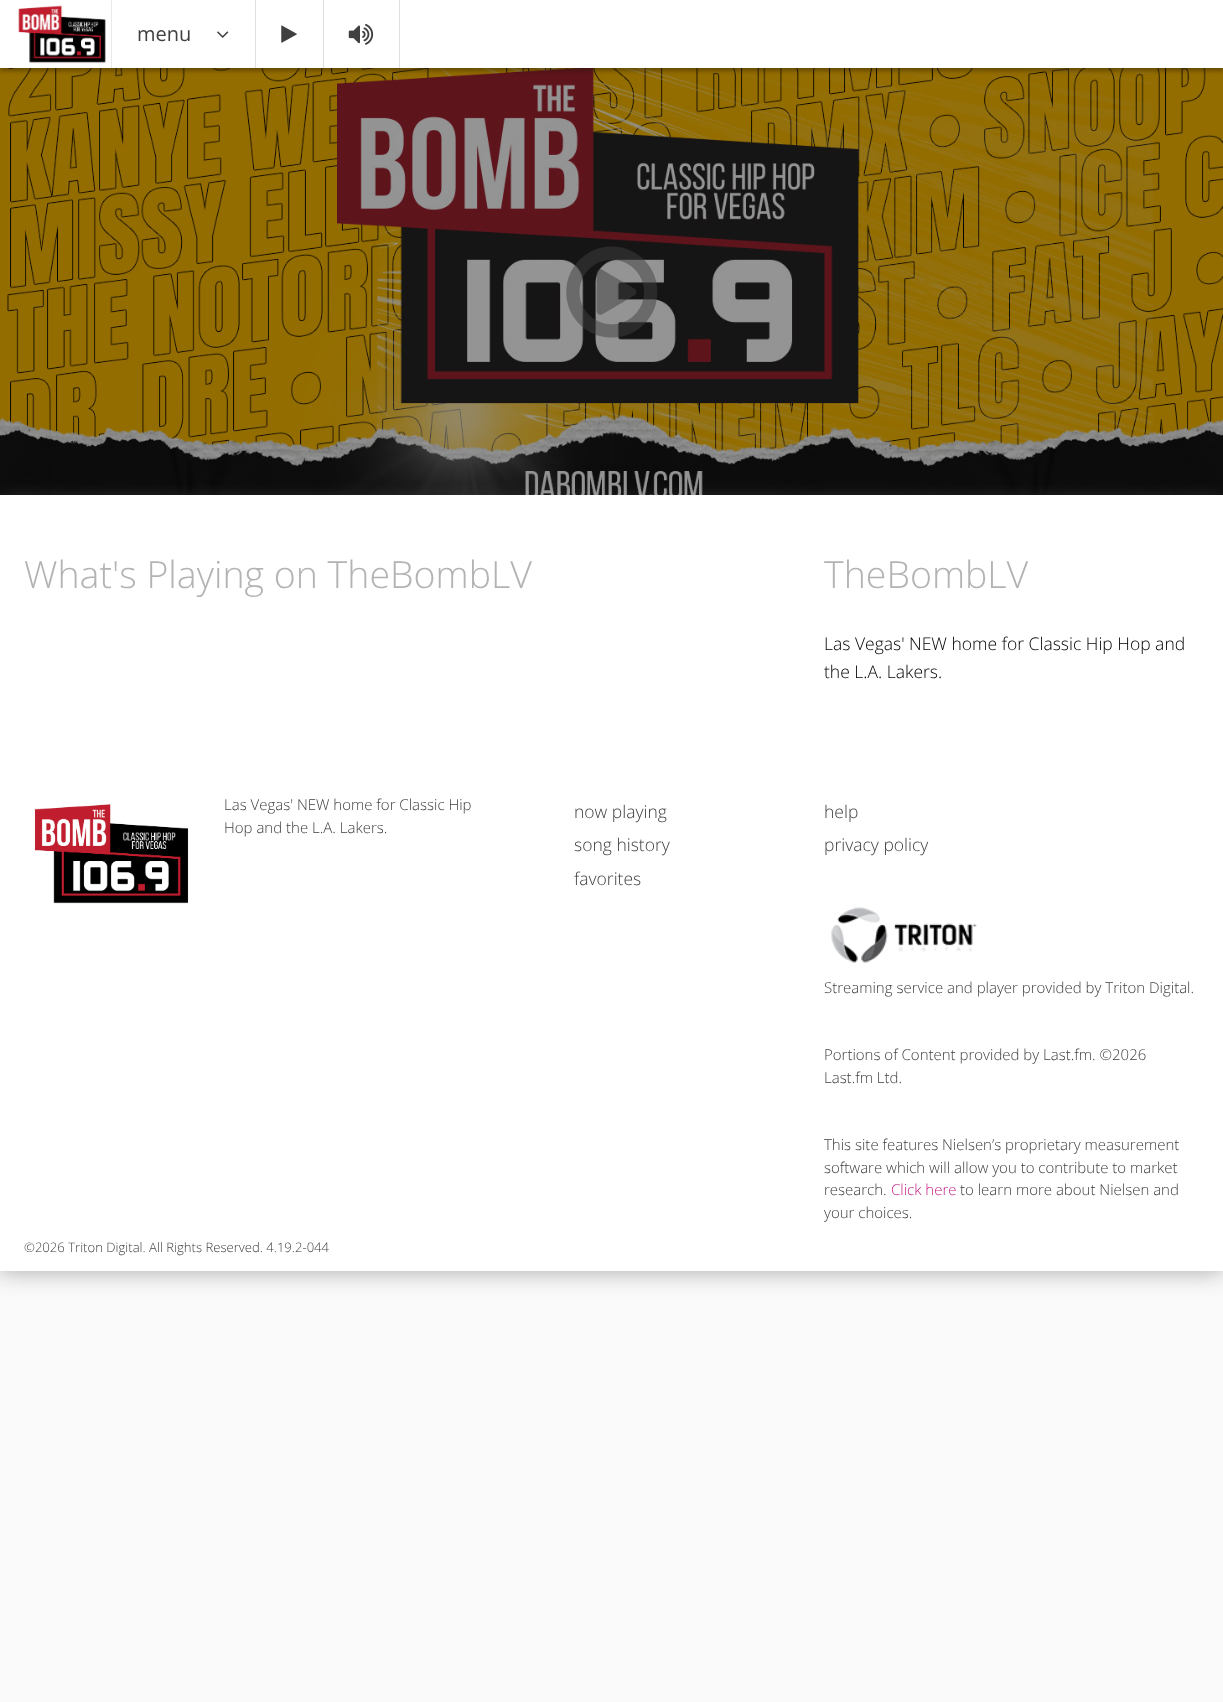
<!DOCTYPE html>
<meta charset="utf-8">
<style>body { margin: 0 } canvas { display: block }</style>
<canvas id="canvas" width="1223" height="1702"></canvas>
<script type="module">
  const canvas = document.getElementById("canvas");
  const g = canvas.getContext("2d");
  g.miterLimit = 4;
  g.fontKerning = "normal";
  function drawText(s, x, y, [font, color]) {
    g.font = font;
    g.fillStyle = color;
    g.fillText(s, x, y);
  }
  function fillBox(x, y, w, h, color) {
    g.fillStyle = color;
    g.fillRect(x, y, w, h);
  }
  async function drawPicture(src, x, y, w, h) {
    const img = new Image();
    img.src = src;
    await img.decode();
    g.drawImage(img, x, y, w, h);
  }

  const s1 = ["20px Open Sans", "#404040"];
  const s2 = ["300 37.5px Open Sans", "#B3B3B3"];
  const s3 = ["300 17.5px Open Sans", "#000000"];
  const s4 = ["300 15px Open Sans", "#404040"];
  const s5 = ["300 17.5px Open Sans", "#404040"];
  const s6 = ["300 15px Open Sans", "#C51E85"];
  const s7 = ["300 13.1px Open Sans", "#404040"];

  fillBox(0, 0, 1223, 1702, "#FAFAFA");
  g.fillStyle = "rgba(38, 38, 38, 0.4)";
  g.filter = "blur(12.5px)";
  g.beginPath();
  g.rect(-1, 68, 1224, 1203);
  g.fill();
  g.filter = "none";
  await drawPicture("pic5.png", 0, 68, 1223, 427);
  fillBox(0, 68, 1223, 427, "rgba(0, 0, 0, 0.42)");
  g.fillStyle = "rgba(35, 23, 5, 0.4)";
  g.filter = "blur(2px)";
  g.beginPath();
  g.rect(0, 4, 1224, 67);
  g.fill();
  g.filter = "none";
  fillBox(0, 0, 1223, 68, "#FFFFFF");
  fillBox(111, 0, 1, 68, "#DFDFDF");
  await drawPicture("pic1.png", 18, 0, 94, 68);
  fillBox(255, 0, 1, 68, "#DFDFDF");
  drawText("menu", 137, 41, s1);
  await drawPicture("pic2.png", 217, 31, 12, 7);
  fillBox(323, 0, 1, 68, "#DFDFDF");
  await drawPicture("pic3.png", 281, 25, 16, 18);
  fillBox(399, 0, 1, 68, "#DFDFDF");
  await drawPicture("pic4.png", 348, 24, 26, 21);
  await drawPicture("pic6.png", 566, 246, 92, 92);
  fillBox(0, 749, 1223, 522, "#FFFFFF");
  g.fillStyle = "rgba(255, 255, 255, 0.1)";
  g.filter = "blur(7.5px)";
  g.beginPath();
  g.rect(0, 495, 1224, 254);
  g.fill();
  g.filter = "none";
  fillBox(0, 495, 1223, 254, "#FFFFFF");
  drawText("What's Playing on TheBombLV", 24, 588, s2);
  drawText("TheBombLV", 824, 588, s2);
  drawText("Las Vegas' NEW home for Classic Hip Hop and", 824, 650, s3);
  drawText("the L.A. Lakers.", 824, 678, s3);
  await drawPicture("pic7.png", 34, 804, 155, 100);
  drawText("Las Vegas' NEW home for Classic Hip", 224, 810, s4);
  drawText("Hop and the L.A. Lakers.", 224, 833, s4);
  drawText("now playing", 574, 818, s5);
  drawText("song history", 574, 851, s5);
  drawText("favorites", 574, 885, s5);
  drawText("help", 824, 818, s5);
  drawText("privacy policy", 824, 851, s5);
  await drawPicture("pic8.png", 831, 907, 146, 56);
  drawText("Streaming service and player provided by Triton Digital.", 824, 993, s4);
  drawText("Portions of Content provided by Last.fm. ©2026", 824, 1060, s4);
  drawText("Last.fm Ltd.", 824, 1083, s4);
  drawText("This site features Nielsen’s proprietary measurement", 824, 1150, s4);
  drawText("software which will allow you to contribute to market", 824, 1173, s4);
  drawText("research.", 824, 1195, s4);
  drawText("Click here", 891, 1195, s6);
  drawText("to learn more about Nielsen and", 960, 1195, s4);
  drawText("your choices.", 824, 1218, s4);
  drawText("©2026 Triton Digital. All Rights Reserved. 4.19.2-044", 24, 1252, s7);
</script>
